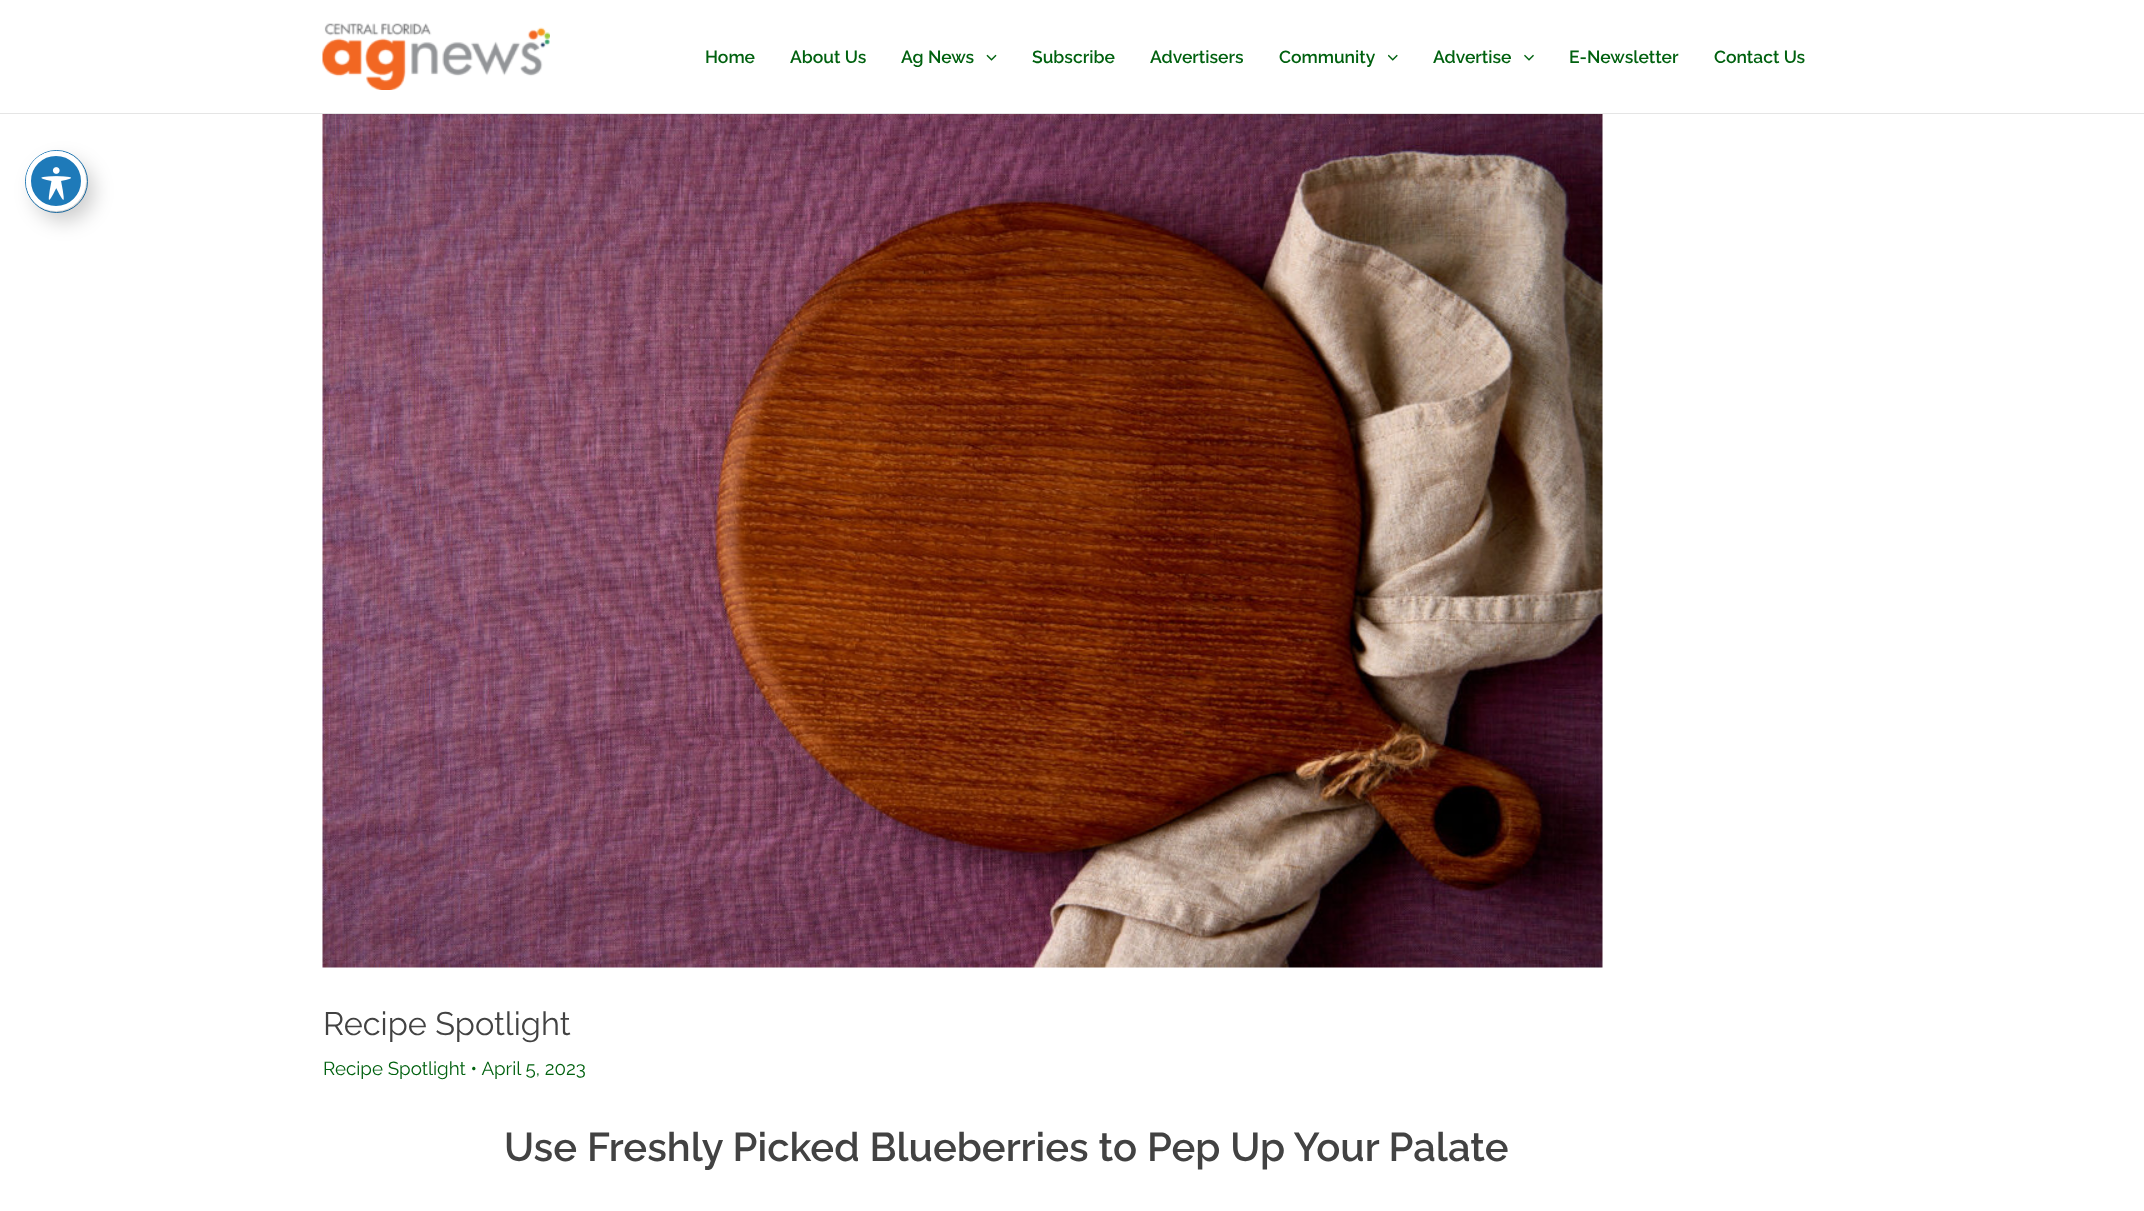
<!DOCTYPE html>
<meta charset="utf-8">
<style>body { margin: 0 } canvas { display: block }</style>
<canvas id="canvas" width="2144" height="1211"></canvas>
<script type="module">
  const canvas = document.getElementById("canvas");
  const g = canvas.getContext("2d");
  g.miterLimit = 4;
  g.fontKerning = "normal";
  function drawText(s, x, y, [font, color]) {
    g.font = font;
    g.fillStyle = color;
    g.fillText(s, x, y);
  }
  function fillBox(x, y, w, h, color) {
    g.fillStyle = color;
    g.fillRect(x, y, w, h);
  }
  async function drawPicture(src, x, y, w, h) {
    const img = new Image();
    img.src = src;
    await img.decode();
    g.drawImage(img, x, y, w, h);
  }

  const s1 = ["600 17.5px Raleway", "#00610F"];
  const s2 = ["32.5px Raleway", "#424242"];
  const s3 = ["18.75px Raleway", "#00610F"];
  const s4 = ["600 40px Raleway", "#424242"];

  fillBox(0, 0, 2144, 1211, "#FFFFFF");
  g.beginPath();
  g.arc(56.5, 181.5, 31, 0, Math.PI * 2);
  g.strokeStyle = "#1E7AB9";
  g.stroke();
  g.fillStyle = "rgba(0, 0, 0, 0.2)";
  g.filter = "blur(10px)";
  g.beginPath();
  g.roundRect(34, 161, 60, 60, 30);
  g.fill();
  g.filter = "none";
  g.fillStyle = "#1E7AB9";
  g.beginPath();
  g.arc(56, 181, 27.5, 0, Math.PI * 2);
  g.fill();
  g.strokeStyle = "#FFFFFF";
  g.lineWidth = 5;
  g.stroke();
  await drawPicture("pic1.png", 41, 167, 30, 33);
  fillBox(0, 113, 2144, 1, "#E5E5E5");
  await drawPicture("pic2.png", 322, 23, 228, 67);
  drawText("Home", 705, 63, s1);
  drawText("About Us", 790, 63, s1);
  drawText("Ag News", 901, 63, s1);
  await drawPicture("pic3.png", 986, 54, 11, 7);
  drawText("Subscribe", 1032, 63, s1);
  drawText("Advertisers", 1150, 63, s1);
  drawText("Community", 1279, 63, s1);
  await drawPicture("pic4.png", 1388, 54, 10, 7);
  drawText("Advertise", 1433, 63, s1);
  await drawPicture("pic5.png", 1524, 54, 10, 7);
  drawText("E-Newsletter", 1569, 63, s1);
  drawText("Contact Us", 1714, 63, s1);
  await drawPicture("pic6.png", 322, 114, 1281, 854);
  drawText("Recipe Spotlight", 323, 1035, s2);
  drawText("Recipe Spotlight • April 5, 2023", 323, 1075, s3);
  drawText("Use Freshly Picked Blueberries to Pep Up Your Palate", 504, 1161, s4);
</script>
